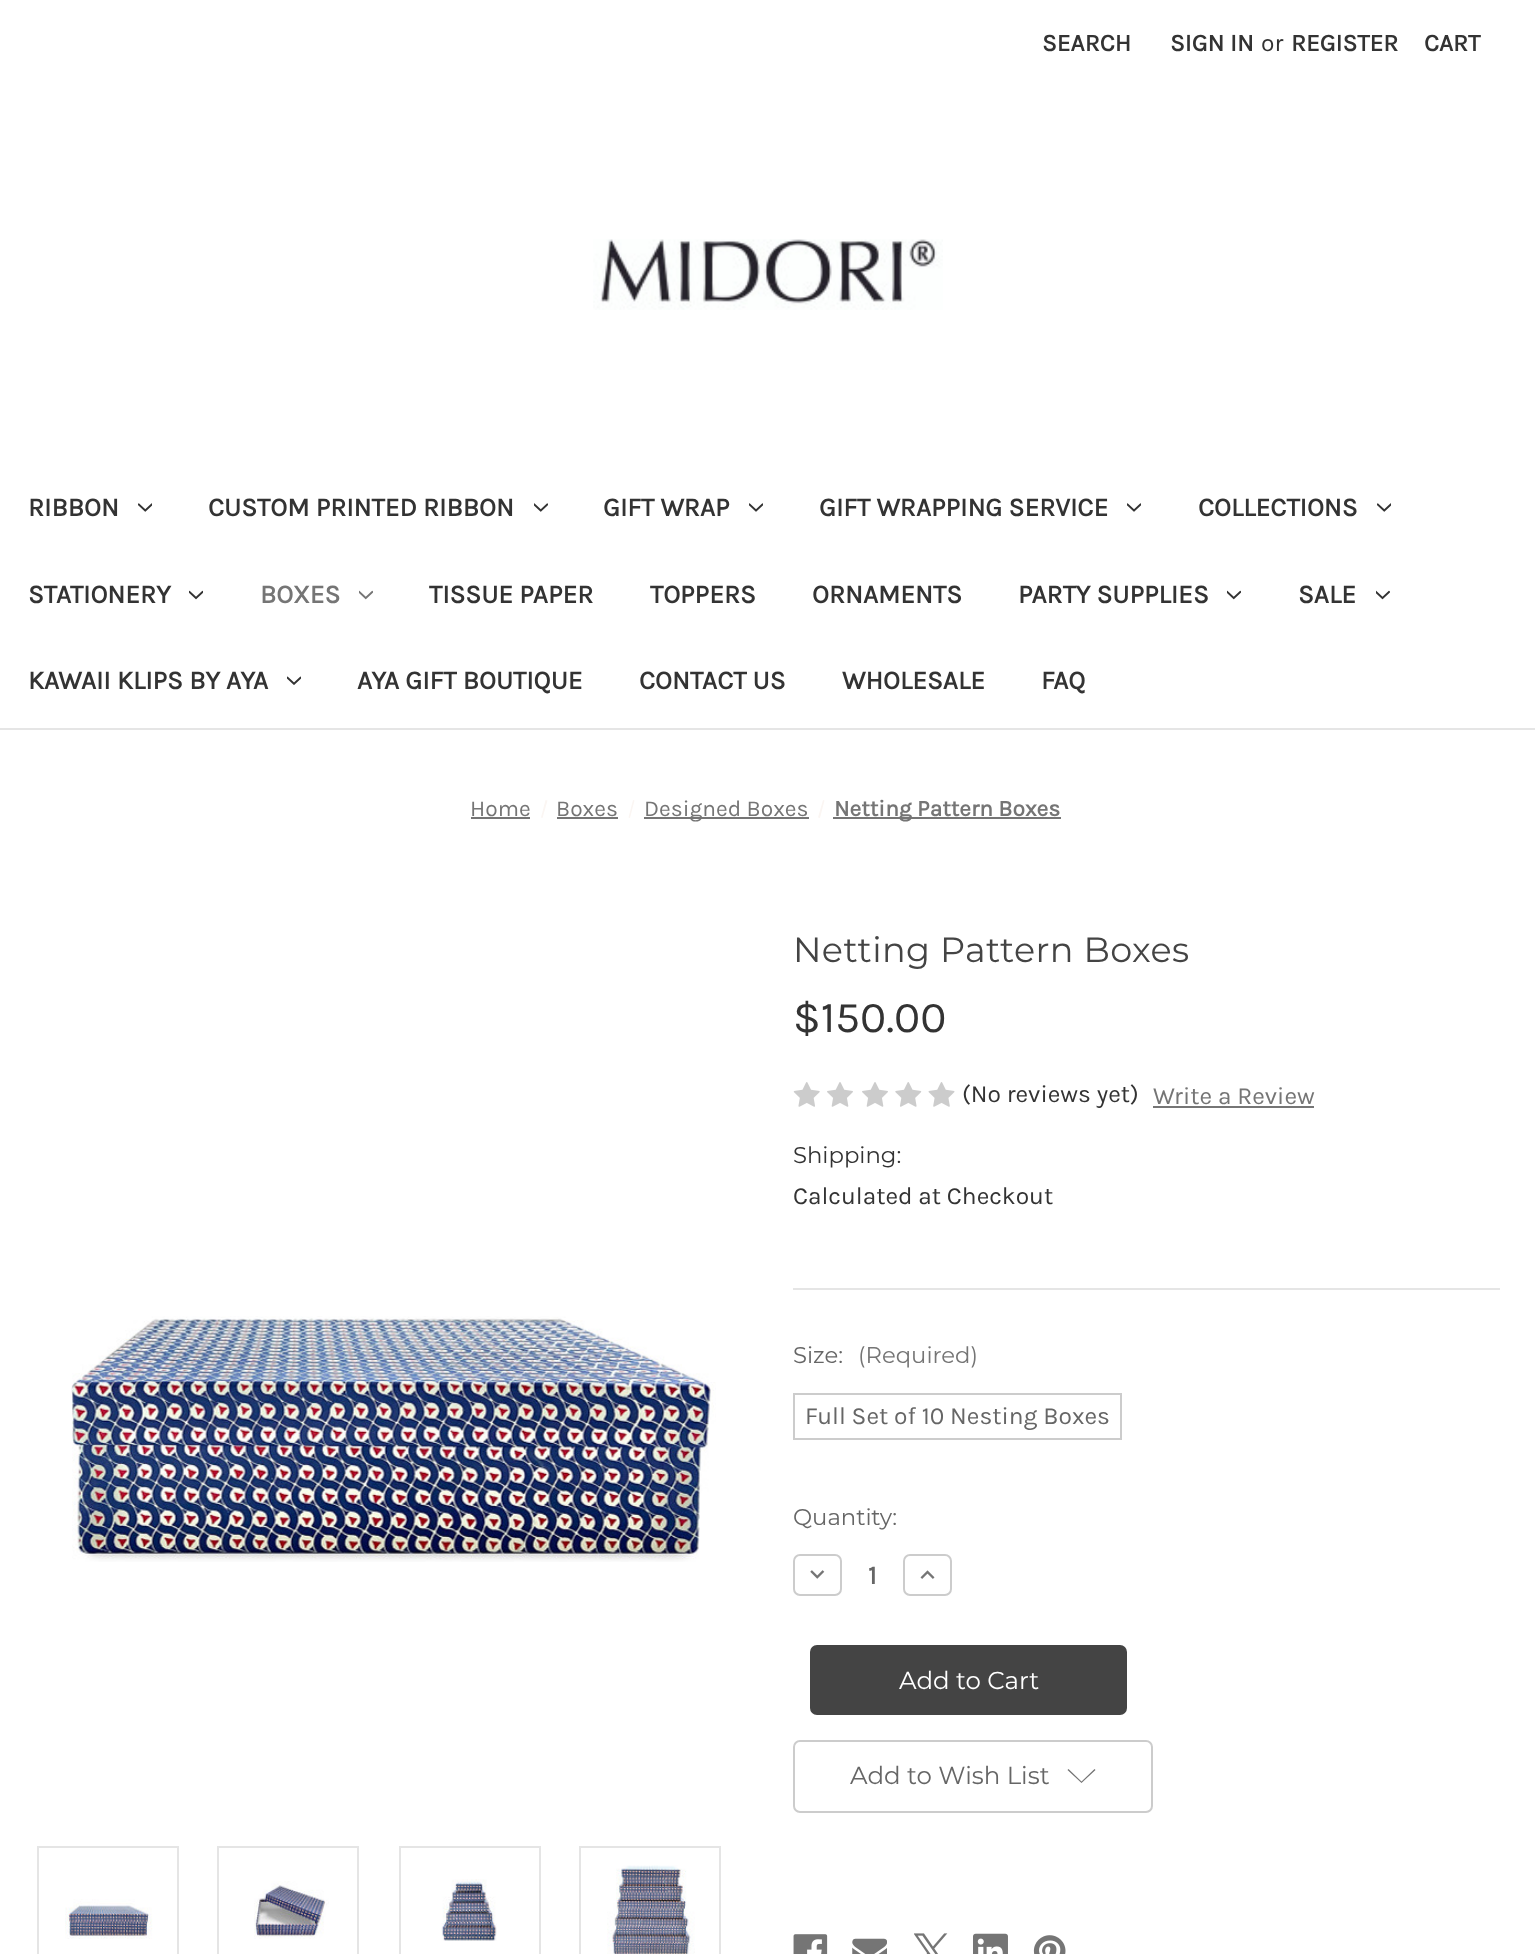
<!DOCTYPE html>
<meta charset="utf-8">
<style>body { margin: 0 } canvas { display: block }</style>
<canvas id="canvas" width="1535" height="1954"></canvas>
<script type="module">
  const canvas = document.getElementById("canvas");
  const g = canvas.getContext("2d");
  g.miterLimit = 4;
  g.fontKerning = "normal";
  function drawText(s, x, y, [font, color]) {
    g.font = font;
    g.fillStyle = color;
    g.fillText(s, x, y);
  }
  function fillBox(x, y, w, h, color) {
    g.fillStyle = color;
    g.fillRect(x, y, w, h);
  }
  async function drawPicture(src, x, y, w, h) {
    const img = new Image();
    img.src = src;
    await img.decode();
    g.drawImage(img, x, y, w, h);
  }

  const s1 = ["bold 24.5px Karla", "#333333"];
  const s2 = ["24.5px Karla", "#333333"];
  const s3 = ["bold 26.25px Karla", "#333333"];
  const s4 = ["bold 26.25px Karla", "#757575"];
  const s5 = ["22.75px Karla", "#757575"];
  const s6 = ["bold 22.75px Karla", "#757575"];
  const s7 = ["35px Montserrat", "#444444"];
  const s8 = ["44px Karla", "#333333"];
  const s9 = ["24.5px Karla", "#757575"];
  const s10 = ["22.75px Montserrat", "#333333"];
  const s11 = ["22.75px Montserrat", "#666666"];
  const s12 = ["22.75px Montserrat", "#757575"];
  const s13 = ["24.5px Karla", "#666666"];
  const s14 = ["bold 26.25px Karla", "#666666"];
  const s15 = ["24.5px Montserrat", "#FFFFFF"];
  const s16 = ["24.5px Montserrat", "#666666"];

  fillBox(0, 0, 1535, 1954, "#FFFFFF");
  fillBox(0, 728, 1535, 2, "#E5E5E5");
  drawText("SEARCH", 1042, 51, s1);
  drawText("SIGN IN", 1170, 51, s1);
  drawText("or", 1261, 51, s2);
  drawText("REGISTER", 1291, 51, s1);
  drawText("CART", 1424, 51, s1);
  await drawPicture("pic1.png", 593, 239, 350, 71);
  drawText("RIBBON", 28, 516, s3);
  await drawPicture("pic2.png", 138, 503, 14, 9);
  drawText("CUSTOM PRINTED RIBBON", 208, 516, s3);
  await drawPicture("pic3.png", 534, 503, 14, 9);
  drawText("GIFT WRAP", 603, 516, s3);
  await drawPicture("pic4.png", 749, 503, 14, 9);
  drawText("GIFT WRAPPING SERVICE", 819, 516, s3);
  await drawPicture("pic4.png", 1127, 503, 14, 9);
  drawText("COLLECTIONS", 1198, 516, s3);
  await drawPicture("pic2.png", 1377, 503, 14, 9);
  drawText("STATIONERY", 28, 603, s3);
  await drawPicture("pic5.png", 189, 590, 14, 10);
  drawText("BOXES", 260, 603, s4);
  await drawPicture("pic6.png", 359, 590, 14, 10);
  drawText("TISSUE PAPER", 429, 603, s3);
  drawText("TOPPERS", 650, 603, s3);
  drawText("ORNAMENTS", 812, 603, s3);
  drawText("PARTY SUPPLIES", 1018, 603, s3);
  await drawPicture("pic7.png", 1227, 590, 14, 10);
  drawText("SALE", 1298, 603, s3);
  await drawPicture("pic8.png", 1376, 590, 14, 10);
  drawText("KAWAII KLIPS BY AYA", 28, 689, s3);
  await drawPicture("pic9.png", 287, 676, 14, 9);
  drawText("AYA GIFT BOUTIQUE", 357, 689, s3);
  drawText("CONTACT US", 639, 689, s3);
  drawText("WHOLESALE", 842, 689, s3);
  drawText("FAQ", 1041, 689, s3);
  drawText("Home", 470, 816, s5);
  fillBox(471, 817, 59, 2, "#757575");
  g.fillStyle = "#FBF6F3";
  g.beginPath();
  g.moveTo(545.5, 800);
  g.lineTo(547.5, 800.5);
  g.lineTo(542.5, 818);
  g.lineTo(541, 817.5);
  g.closePath();
  g.fill();
  drawText("Boxes", 556, 816, s5);
  fillBox(557, 817, 61, 2, "#757575");
  g.fillStyle = "#FBF6F3";
  g.beginPath();
  g.moveTo(633, 800);
  g.lineTo(634.5, 800.5);
  g.lineTo(630, 818);
  g.lineTo(628.5, 817.5);
  g.closePath();
  g.fill();
  fillBox(644, 817, 165, 2, "#757575");
  drawText("Designed Boxes", 644, 816, s5);
  g.fillStyle = "#FBF6F3";
  g.beginPath();
  g.moveTo(823, 800);
  g.lineTo(824.5, 800.5);
  g.lineTo(820, 818);
  g.lineTo(818, 817.5);
  g.closePath();
  g.fill();
  fillBox(833, 817, 228, 2, "#757575");
  drawText("Netting Pattern Boxes", 834, 816, s6);
  fillBox(793, 1288, 707, 2, "#E5E5E5");
  g.letterSpacing = "0.4px";
  drawText("Netting Pattern Boxes", 793, 962, s7);
  g.letterSpacing = "0px";
  drawText("$150.00", 793, 1032, s8);
  await drawPicture("pic10.png", 793, 1082, 27, 25);
  await drawPicture("pic11.png", 827, 1082, 26, 25);
  await drawPicture("pic11.png", 862, 1082, 26, 25);
  await drawPicture("pic12.png", 895, 1082, 27, 25);
  await drawPicture("pic13.png", 928, 1082, 27, 25);
  drawText("(No reviews yet)", 962, 1102, s2);
  drawText("Write a Review", 1153, 1104, s9);
  fillBox(1153, 1106, 161, 2, "#757575");
  drawText("Shipping:", 793, 1163, s10);
  drawText("Calculated at Checkout", 793, 1204, s2);
  await drawPicture("pic14.png", 71, 1316, 645, 246);
  g.strokeStyle = "#E5E5E5";
  g.lineWidth = 2;
  g.strokeRect(38, 1847, 140, 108);
  await drawPicture("pic15.png", 65, 1899, 88, 40);
  g.strokeRect(218, 1847, 140, 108);
  await drawPicture("pic16.png", 254, 1881, 75, 58);
  g.strokeRect(400, 1847, 140, 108);
  await drawPicture("pic17.png", 441, 1879, 56, 62);
  g.strokeRect(580, 1847, 140, 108);
  await drawPicture("pic18.png", 607, 1865, 88, 89);
  drawText("Size:", 793, 1363, s11);
  drawText("(Required)", 858, 1363, s12);
  g.strokeStyle = "#CCCCCC";
  g.strokeRect(794, 1394, 327, 45);
  drawText("Full Set of 10 Nesting Boxes", 805, 1424, s13);
  drawText("Quantity:", 793, 1525, s11);
  g.beginPath();
  g.roundRect(794, 1555, 47, 40, 6);
  g.stroke();
  await drawPicture("pic19.png", 810, 1570, 15, 9);
  drawText("1", 868, 1584, s14);
  g.beginPath();
  g.roundRect(904, 1555, 47, 40, 6);
  g.stroke();
  await drawPicture("pic20.png", 920, 1570, 15, 9);
  g.fillStyle = "#444444";
  g.beginPath();
  g.roundRect(811, 1646, 315, 68, 6);
  g.fill();
  g.strokeStyle = "#444444";
  g.stroke();
  drawText("Add to Cart", 899, 1689, s15);
  g.beginPath();
  g.roundRect(794, 1741, 358, 71, 6);
  g.strokeStyle = "#CCCCCC";
  g.stroke();
  drawText("Add to Wish List", 850, 1784, s16);
  g.fillStyle = "#757575";
  g.beginPath();
  g.moveTo(1081.5, 1781.5);
  g.lineTo(1094.5, 1769);
  g.lineTo(1095.5, 1770);
  g.lineTo(1081.5, 1783);
  g.lineTo(1067.5, 1770);
  g.lineTo(1068.5, 1769);
  g.closePath();
  g.fill("evenodd");
  await drawPicture("pic21.png", 793, 1934, 35, 20);
  await drawPicture("pic22.png", 852, 1938, 35, 16);
  await drawPicture("pic23.png", 914, 1933, 34, 21);
  await drawPicture("pic24.png", 973, 1933, 35, 21);
  await drawPicture("pic25.png", 1033, 1935, 33, 19);
</script>
